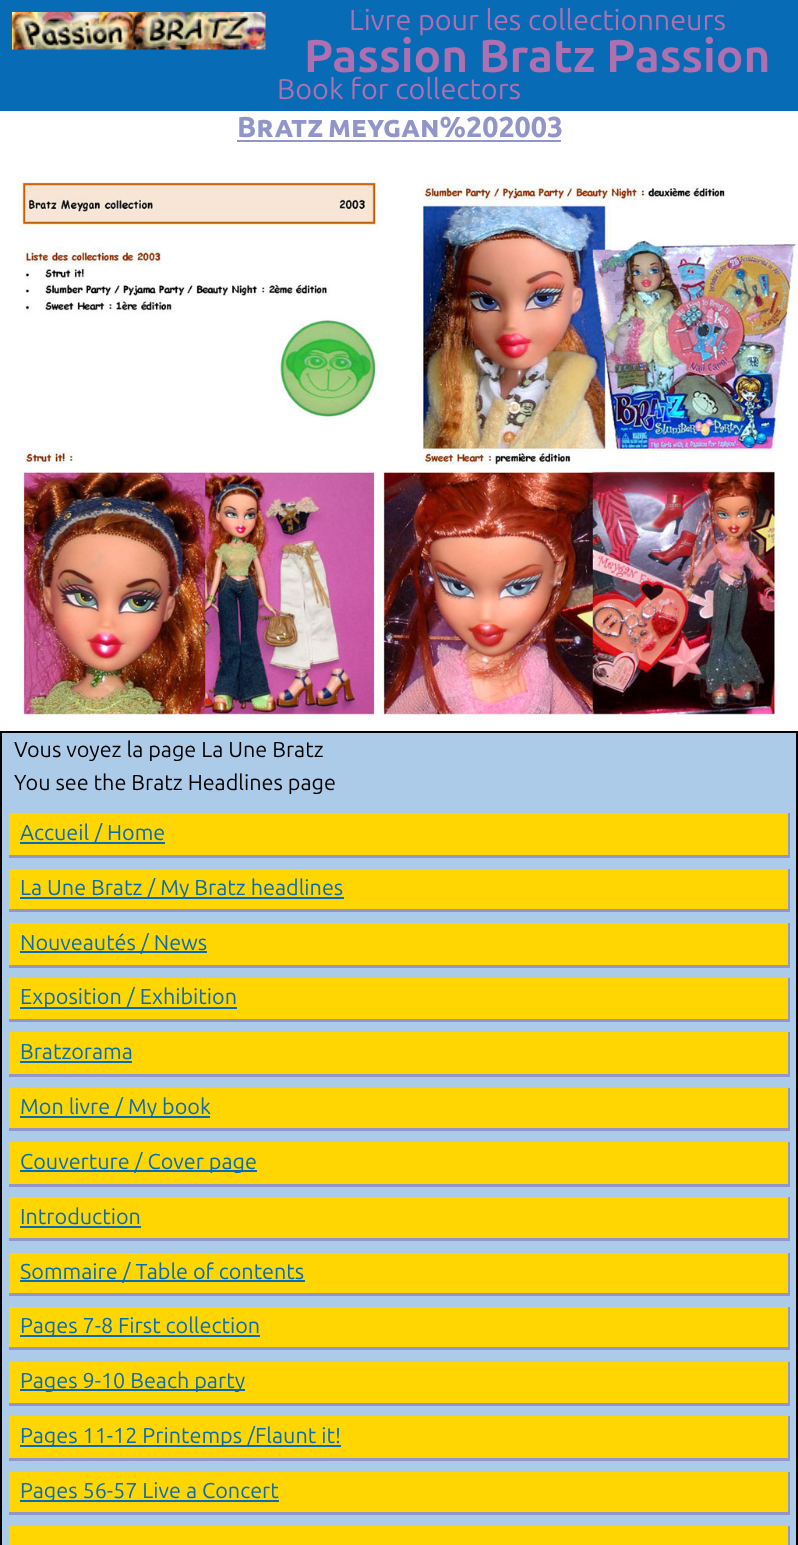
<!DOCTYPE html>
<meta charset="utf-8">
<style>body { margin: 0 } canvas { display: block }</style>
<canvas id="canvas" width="798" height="1545"></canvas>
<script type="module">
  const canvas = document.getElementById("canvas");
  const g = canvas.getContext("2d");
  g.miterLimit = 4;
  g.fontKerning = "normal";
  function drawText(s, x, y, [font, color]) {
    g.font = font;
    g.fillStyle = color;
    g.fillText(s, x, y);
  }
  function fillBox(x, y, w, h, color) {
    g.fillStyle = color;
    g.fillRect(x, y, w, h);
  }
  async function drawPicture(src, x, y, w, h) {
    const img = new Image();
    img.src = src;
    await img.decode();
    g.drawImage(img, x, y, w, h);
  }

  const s1 = ["28.75px Ubuntu", "#AE70AF"];
  const s2 = ["bold 46px Ubuntu", "#AE70AF"];
  const s3 = ["800 28.75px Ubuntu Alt", "#9295CA"];
  const s4 = ["21.6px Ubuntu", "#000000"];
  const s5 = ["21.6px Ubuntu", "#076BB6"];

  fillBox(0, 0, 798, 1545, "#FFFFFF");
  fillBox(0, 0, 798, 111, "#076BB6");
  await drawPicture("pic1.png", 12, 12, 254, 38);
  drawText("Livre pour les collectionneurs", 349, 30, s1);
  drawText("Passion Bratz Passion", 304, 72, s2);
  drawText("Book for collectors", 277, 99, s1);
  g.wordSpacing = "-2px";
  drawText("Bratz meygan%202003", 237, 137, s3);
  fillBox(237, 140, 324, 2, "#9295CA");
  await drawPicture("pic2.png", 17, 178, 781, 542);
  g.fillStyle = "#ACCBE8";
  g.beginPath();
  g.rect(1, 732, 796, 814);
  g.fill();
  g.strokeStyle = "#000000";
  g.lineWidth = 2;
  g.stroke();
  g.wordSpacing = "0px";
  drawText("Vous voyez la page La Une Bratz", 14, 757, s4);
  drawText("You see the Bratz Headlines page", 14, 790, s4);
  fillBox(9, 813, 779, 42, "#FFD602");
  fillBox(788, 813, 2, 45, "#9295CA");
  fillBox(9, 855, 780, 3, "#9295CA");
  fillBox(20, 842, 145, 2, "#076BB6");
  drawText("Accueil / Home", 20, 840, s5);
  fillBox(9, 869, 779, 40, "#FFD602");
  fillBox(788, 869, 2, 43, "#9295CA");
  fillBox(9, 909, 780, 3, "#9295CA");
  fillBox(20, 897, 324, 2, "#076BB6");
  drawText("La Une Bratz / My Bratz headlines", 20, 895, s5);
  fillBox(9, 923, 779, 42, "#FFD602");
  fillBox(788, 923, 2, 45, "#9295CA");
  fillBox(9, 965, 780, 3, "#9295CA");
  fillBox(20, 951, 187, 2, "#076BB6");
  drawText("Nouveautés / News", 20, 950, s5);
  fillBox(9, 978, 779, 41, "#FFD602");
  fillBox(788, 978, 2, 44, "#9295CA");
  fillBox(9, 1019, 780, 3, "#9295CA");
  fillBox(20, 1007, 217, 2, "#076BB6");
  drawText("Exposition / Exhibition", 20, 1004, s5);
  fillBox(9, 1032, 779, 42, "#FFD602");
  fillBox(788, 1032, 2, 45, "#9295CA");
  fillBox(9, 1074, 780, 3, "#9295CA");
  drawText("Bratzorama", 20, 1059, s5);
  fillBox(20, 1061, 112, 2, "#076BB6");
  fillBox(9, 1088, 779, 40, "#FFD602");
  fillBox(788, 1088, 2, 43, "#9295CA");
  fillBox(9, 1128, 780, 3, "#9295CA");
  fillBox(20, 1116, 190, 2, "#076BB6");
  drawText("Mon livre / My book", 20, 1114, s5);
  fillBox(9, 1142, 779, 42, "#FFD602");
  fillBox(788, 1142, 2, 45, "#9295CA");
  fillBox(9, 1184, 780, 3, "#9295CA");
  fillBox(20, 1170, 237, 2, "#076BB6");
  drawText("Couverture / Cover page", 20, 1169, s5);
  fillBox(9, 1197, 779, 41, "#FFD602");
  fillBox(788, 1197, 2, 44, "#9295CA");
  fillBox(9, 1238, 780, 3, "#9295CA");
  drawText("Introduction", 20, 1224, s5);
  fillBox(20, 1226, 121, 2, "#076BB6");
  fillBox(9, 1253, 779, 40, "#FFD602");
  fillBox(788, 1253, 2, 43, "#9295CA");
  fillBox(9, 1293, 780, 3, "#9295CA");
  fillBox(20, 1280, 285, 2, "#076BB6");
  drawText("Sommaire / Table of contents", 20, 1279, s5);
  fillBox(9, 1307, 779, 40, "#FFD602");
  fillBox(788, 1307, 2, 43, "#9295CA");
  fillBox(9, 1347, 780, 3, "#9295CA");
  fillBox(20, 1335, 240, 2, "#076BB6");
  drawText("Pages 7-8 First collection", 20, 1333, s5);
  fillBox(9, 1362, 779, 41, "#FFD602");
  fillBox(788, 1362, 2, 44, "#9295CA");
  fillBox(9, 1403, 780, 3, "#9295CA");
  fillBox(20, 1389, 225, 2, "#076BB6");
  drawText("Pages 9-10 Beach party", 20, 1388, s5);
  fillBox(9, 1416, 779, 42, "#FFD602");
  fillBox(788, 1416, 2, 45, "#9295CA");
  fillBox(9, 1458, 780, 3, "#9295CA");
  fillBox(20, 1445, 321, 2, "#076BB6");
  drawText("Pages 11-12 Printemps /Flaunt it!", 20, 1443, s5);
  fillBox(9, 1472, 779, 40, "#FFD602");
  fillBox(788, 1472, 2, 43, "#9295CA");
  fillBox(9, 1512, 780, 3, "#9295CA");
  fillBox(20, 1500, 259, 2, "#076BB6");
  drawText("Pages 56-57 Live a Concert", 20, 1498, s5);
  fillBox(9, 1526, 779, 19, "#FFD602");
  fillBox(788, 1526, 2, 19, "#9295CA");
</script>
